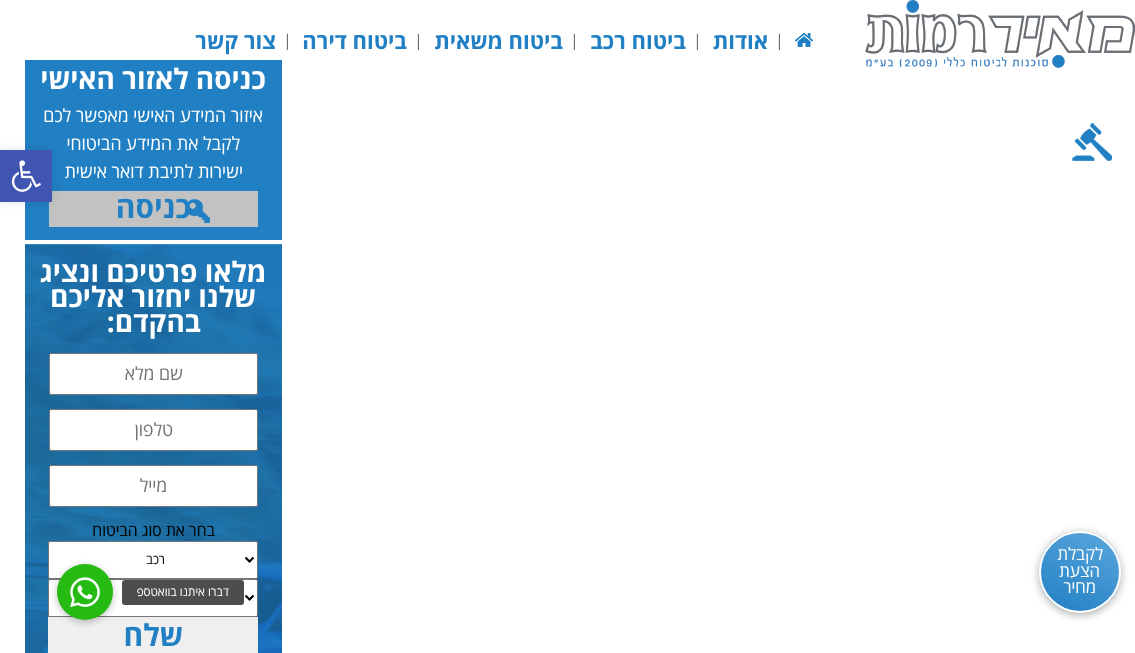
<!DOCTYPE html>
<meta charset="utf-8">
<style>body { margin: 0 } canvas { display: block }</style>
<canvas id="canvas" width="1135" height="653"></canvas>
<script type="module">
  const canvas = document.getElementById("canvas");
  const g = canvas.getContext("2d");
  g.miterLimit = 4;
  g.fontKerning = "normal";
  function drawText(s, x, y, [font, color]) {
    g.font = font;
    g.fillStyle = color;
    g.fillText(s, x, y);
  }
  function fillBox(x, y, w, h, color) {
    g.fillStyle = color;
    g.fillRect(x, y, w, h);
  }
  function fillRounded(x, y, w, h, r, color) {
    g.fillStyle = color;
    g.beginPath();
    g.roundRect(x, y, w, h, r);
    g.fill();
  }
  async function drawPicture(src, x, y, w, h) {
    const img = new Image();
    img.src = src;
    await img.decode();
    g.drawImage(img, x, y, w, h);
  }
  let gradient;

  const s1 = ["16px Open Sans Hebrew", "#686E74"];
  const s2 = ["bold 22px Open Sans Hebrew", "#2180C3"];
  const s3 = ["bold 28px Open Sans Hebrew", "#FFFFFF"];
  const s4 = ["18px Open Sans Hebrew", "#FFFFFF"];
  const s5 = ["bold 30px Open Sans Hebrew", "#2180C3"];
  const s6 = ["18px Open Sans Hebrew", "#757575"];
  const s7 = ["16px Open Sans Hebrew", "#000000"];
  const s8 = ["13px Open Sans Hebrew", "#000000"];
  const s9 = ["17px Open Sans Hebrew", "#FFFFFF"];
  const s10 = ["12px Open Sans Hebrew", "#FFFFFF"];

  fillBox(0, 0, 1135, 653, "#FFFFFF");
  await drawPicture("pic1.png", 865, 0, 270, 68);
  await drawPicture("pic2.png", 795, 33, 18, 14);
  drawText("|", 775, 46, s1);
  g.direction = "rtl";
  drawText("אודות", 768, 49, s2);
  g.direction = "ltr";
  drawText("|", 693, 46, s1);
  g.direction = "rtl";
  drawText("ביטוח רכב", 686, 49, s2);
  g.direction = "ltr";
  drawText("|", 570, 46, s1);
  g.direction = "rtl";
  drawText("ביטוח משאית", 563, 49, s2);
  g.direction = "ltr";
  drawText("|", 414, 46, s1);
  g.direction = "rtl";
  drawText("ביטוח דירה", 407, 49, s2);
  g.direction = "ltr";
  drawText("|", 283, 46, s1);
  g.direction = "rtl";
  drawText("צור קשר", 276, 49, s2);
  await drawPicture("pic3.png", 1072, 123, 40, 38);
  fillBox(25, 60, 257, 180, "#2180C3");
  drawText("כניסה לאזור האישי", 266, 89, s3);
  drawText("איזור המידע האישי מאפשר לכם", 263, 122, s4);
  drawText("לקבל את המידע הביטוחי", 240, 150, s4);
  drawText("ישירות לתיבת דואר אישית", 243, 178, s4);
  fillBox(49, 191, 209, 36, "#C2C2C2");
  await drawPicture("pic4.png", 185, 199, 25, 24);
  drawText("כניסה", 191, 218, s5);
  await drawPicture("pic5.png", 25, 244, 257, 409);
  drawText("מלאו פרטיכם ונציג", 266, 282, s3);
  drawText("שלנו", 256, 307, s3);
  drawText("יחזור אליכם", 191, 307, s3);
  drawText("בהקדם:", 201, 332, s3);
  g.beginPath();
  g.roundRect(49.5, 353.5, 208, 41, 1.5);
  g.fill();
  g.strokeStyle = "#767676";
  g.stroke();
  drawText("שם מלא", 183, 380, s6);
  g.fillStyle = "#FFFFFF";
  g.beginPath();
  g.roundRect(49.5, 409.5, 208, 41, 1.5);
  g.fill();
  g.stroke();
  drawText("טלפון", 173, 436, s6);
  g.fillStyle = "#FFFFFF";
  g.beginPath();
  g.roundRect(49.5, 465.5, 208, 41, 1.5);
  g.fill();
  g.stroke();
  drawText("מייל", 167, 492, s6);
  drawText("בחר את סוג הביטוח", 215, 536, s7);
  g.fillStyle = "#FFFFFF";
  g.beginPath();
  g.roundRect(48.5, 541.5, 209, 37, 1.5);
  g.fill();
  g.stroke();
  g.beginPath();
  g.moveTo(245.5, 557.5);
  g.lineTo(249.5, 561.5);
  g.lineTo(253.5, 557.5);
  g.strokeStyle = "#000000";
  g.lineWidth = 2;
  g.stroke();
  drawText("רכב", 165, 564, s8);
  g.fillStyle = "#FFFFFF";
  g.beginPath();
  g.roundRect(48.5, 579.5, 209, 37, 1.5);
  g.fill();
  g.strokeStyle = "#767676";
  g.lineWidth = 1;
  g.stroke();
  g.beginPath();
  g.moveTo(245.5, 595.5);
  g.lineTo(249.5, 599.5);
  g.lineTo(253.5, 595.5);
  g.strokeStyle = "#000000";
  g.lineWidth = 2;
  g.stroke();
  fillBox(48, 617, 210, 36, "#EFEFEF");
  drawText("שלח", 183, 646, s5);
  g.fillStyle = "rgba(0, 0, 0, 0.1)";
  g.filter = "blur(5px)";
  g.beginPath();
  g.rect(0, 150, 52, 52);
  g.fill();
  g.filter = "none";
  fillBox(0, 150, 52, 52, "#4054B2");
  await drawPicture("pic6.png", 11, 160, 30, 32);
  g.fillStyle = "rgba(0, 0, 0, 0.33)";
  g.filter = "blur(4.5px)";
  g.beginPath();
  g.roundRect(1039, 533, 82, 82, 41);
  g.fill();
  g.filter = "none";
  g.save();
  g.beginPath();
  g.roundRect(1039, 531, 82, 82, 41);
  g.clip();
  gradient = g.createLinearGradient(1104, 525, 1056, 619);
  gradient.addColorStop(0, "#5BA7DD");
  gradient.addColorStop(1, "#217FC3");
  g.fillStyle = gradient;
  g.fillRect(1041, 533, 78, 78);
  g.restore();
  g.beginPath();
  g.arc(1080, 572, 40, 0, Math.PI * 2);
  g.strokeStyle = "#FFFFFF";
  g.stroke();
  drawText("לקבלת", 1103, 560, s9);
  drawText("הצעת", 1100, 577, s9);
  drawText("מחיר", 1096, 593, s9);
  g.fillStyle = "rgba(0, 0, 0, 0.2)";
  g.filter = "blur(3px)";
  g.beginPath();
  g.roundRect(56, 565, 58, 58, 29);
  g.fill();
  g.filter = "none";
  g.fillStyle = "#26BB12";
  g.beginPath();
  g.arc(85, 592, 28, 0, Math.PI * 2);
  g.fill();
  fillRounded(122, 580, 122, 25, 3, "#4E4C4C");
  drawText("דברו איתנו בוואטספ", 229, 596, s10);
  await drawPicture("pic7.png", 70, 577, 30, 31);
</script>
